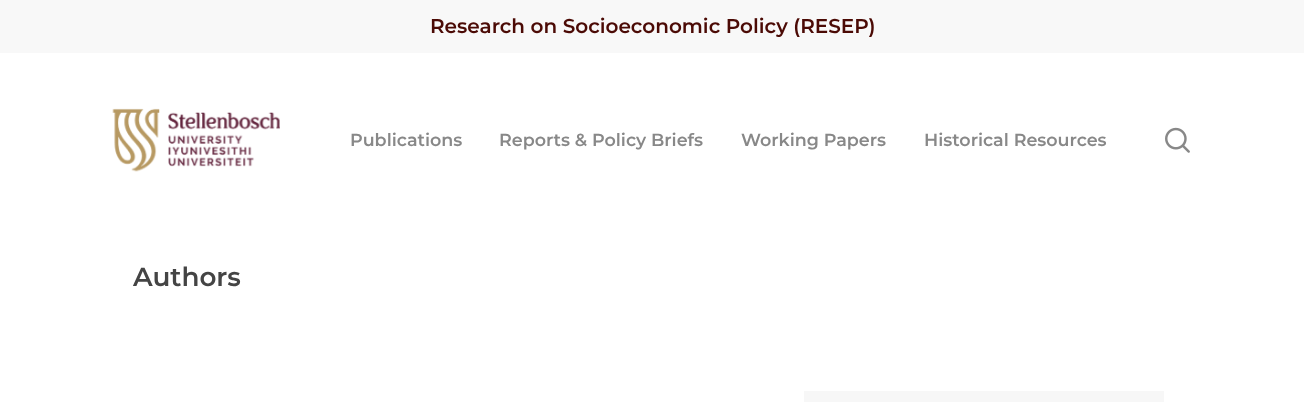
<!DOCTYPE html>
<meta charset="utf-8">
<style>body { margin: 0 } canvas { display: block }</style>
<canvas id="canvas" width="1304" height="402"></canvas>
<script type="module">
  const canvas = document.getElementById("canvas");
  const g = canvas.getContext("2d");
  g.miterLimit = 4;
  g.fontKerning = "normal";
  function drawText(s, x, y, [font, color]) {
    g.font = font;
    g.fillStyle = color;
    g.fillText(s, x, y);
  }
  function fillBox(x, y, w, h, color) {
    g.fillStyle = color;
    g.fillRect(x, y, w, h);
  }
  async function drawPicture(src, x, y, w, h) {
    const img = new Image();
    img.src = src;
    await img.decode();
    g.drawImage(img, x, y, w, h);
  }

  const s1 = ["600 20px Montserrat", "#4B0A05"];
  const s2 = ["600 17.5px Montserrat", "#888888"];
  const s3 = ["600 26.25px Montserrat", "#444444"];

  fillBox(0, 0, 1304, 402, "#FFFFFF");
  fillBox(0, 0, 1304, 53, "#F8F8F8");
  drawText("Research on Socioeconomic Policy (RESEP)", 430, 33, s1);
  await drawPicture("pic1.png", 112, 108, 168, 64);
  drawText("Publications", 350, 146, s2);
  drawText("Reports & Policy Briefs", 499, 146, s2);
  drawText("Working Papers", 741, 146, s2);
  drawText("Historical Resources", 924, 146, s2);
  await drawPicture("pic2.png", 1165, 127, 25, 26);
  drawText("Authors", 133, 286, s3);
  fillBox(804, 391, 360, 11, "#F7F7F7");
</script>
